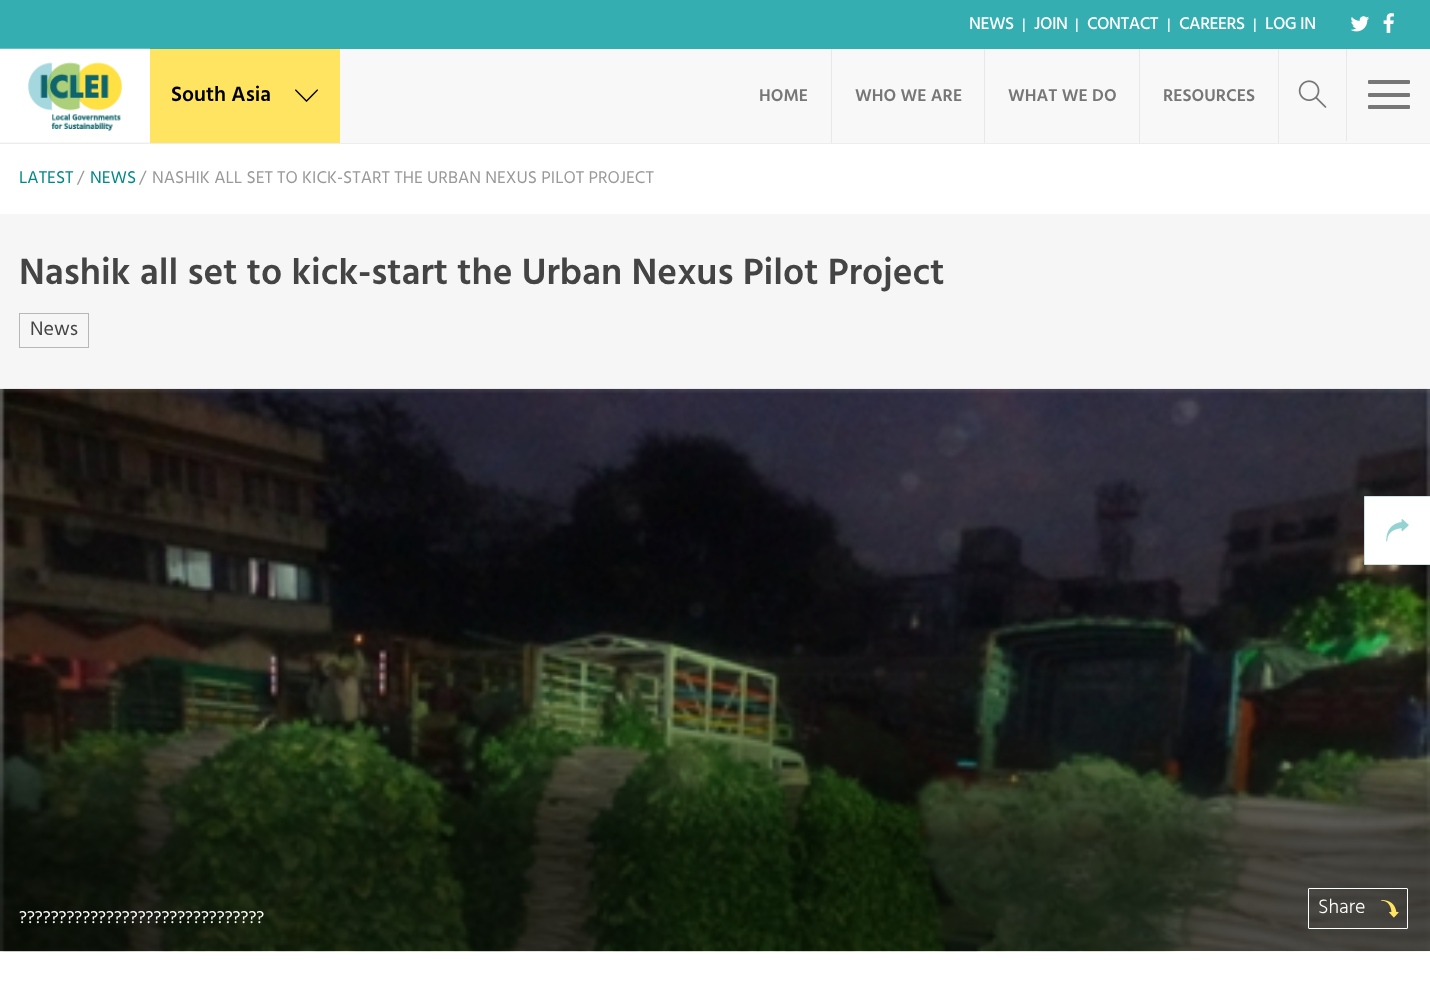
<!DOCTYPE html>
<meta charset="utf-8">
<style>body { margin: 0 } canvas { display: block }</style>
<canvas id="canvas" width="1430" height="992"></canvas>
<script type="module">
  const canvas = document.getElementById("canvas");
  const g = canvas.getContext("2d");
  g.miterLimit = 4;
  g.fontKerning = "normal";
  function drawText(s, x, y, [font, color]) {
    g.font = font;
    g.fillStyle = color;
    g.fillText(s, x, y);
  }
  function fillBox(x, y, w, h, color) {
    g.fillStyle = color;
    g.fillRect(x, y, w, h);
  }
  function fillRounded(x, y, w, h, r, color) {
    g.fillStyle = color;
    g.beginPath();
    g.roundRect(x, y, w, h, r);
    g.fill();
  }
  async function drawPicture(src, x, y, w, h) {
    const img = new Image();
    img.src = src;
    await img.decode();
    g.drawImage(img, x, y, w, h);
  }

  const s1 = ["500 17.5px Hind", "#FFFFFF"];
  const s2 = ["500 15px Hind", "#FFFFFF"];
  const s3 = ["600 21.25px Hind", "#000000"];
  const s4 = ["600 17.5px Hind", "#777777"];
  const s5 = ["17.5px Hind", "#008887"];
  const s6 = ["17.5px Hind", "#999999"];
  const s7 = ["600 37.5px Hind", "#444444"];
  const s8 = ["20px Hind", "#444444"];
  const s9 = ["300 20px Hind", "#FFFFFF"];
  const s10 = ["17.5px Hind", "#FFFFFF"];

  fillBox(0, 0, 1430, 992, "#FFFFFF");
  fillBox(0, 0, 1430, 49, "#34AEB1");
  g.letterSpacing = "-0.5px";
  drawText("NEWS", 969, 29, s1);
  drawText("|", 1022, 29, s2);
  drawText("JOIN", 1034, 29, s1);
  drawText("|", 1075, 29, s2);
  drawText("CONTACT", 1087, 29, s1);
  drawText("|", 1167, 29, s2);
  drawText("CAREERS", 1179, 29, s1);
  drawText("|", 1253, 29, s2);
  drawText("LOG IN", 1265, 29, s1);
  await drawPicture("pic1.png", 1350, 16, 19, 16);
  await drawPicture("pic2.png", 1383, 13, 11, 20);
  fillBox(0, 49, 1430, 94, "#F8F8F8");
  fillBox(0, 143, 1430, 1, "#EDEDED");
  await drawPicture("pic3.png", 0, 48, 150, 94);
  fillBox(150, 49, 190, 94, "#FFE461");
  g.letterSpacing = "0px";
  drawText("South Asia", 171, 101, s3);
  await drawPicture("pic4.png", 295, 89, 23, 13);
  drawText("HOME", 759, 101, s4);
  fillBox(831, 49, 1, 94, "#E8E8E8");
  drawText("WHO WE ARE", 855, 101, s4);
  fillBox(984, 49, 1, 94, "#E8E8E8");
  drawText("WHAT WE DO", 1008, 101, s4);
  fillBox(1139, 49, 1, 94, "#E8E8E8");
  drawText("RESOURCES", 1163, 101, s4);
  fillBox(1278, 49, 1, 94, "#E8E8E8");
  await drawPicture("pic5.png", 1298, 80, 29, 28);
  fillBox(1346, 49, 1, 92, "#E8E8E8");
  fillRounded(1368, 80, 42, 4, 1, "#777777");
  fillRounded(1368, 93, 42, 4, 1, "#777777");
  fillRounded(1368, 105, 42, 4, 1, "#777777");
  drawText("LATEST", 19, 183, s5);
  drawText("/", 77, 183, s6);
  drawText("NEWS", 90, 183, s5);
  drawText("/", 139, 183, s6);
  drawText("NASHIK ALL SET TO KICK-START THE URBAN NEXUS PILOT PROJECT", 152, 183, s6);
  fillBox(0, 214, 1430, 175, "#F6F6F6");
  drawText("Nashik all set to kick-start the Urban Nexus Pilot Project", 19, 284, s7);
  g.strokeStyle = "#B7B7B7";
  g.strokeRect(19.5, 313.5, 69, 34);
  drawText("News", 30, 335, s8);
  await drawPicture("pic6.png", 0, 388, 1430, 564);
  g.beginPath();
  g.roundRect(1308.5, 888.5, 99, 40, 0.5);
  g.strokeStyle = "#FFFFFF";
  g.stroke();
  drawText("Share", 1318, 913, s9);
  await drawPicture("pic7.png", 1381, 900, 18, 18);
  drawText("???????????????????????????????", 19, 923, s10);
  g.beginPath();
  g.rect(1364.5, 496.5, 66, 68);
  g.fill();
  g.strokeStyle = "#CAE2E3";
  g.stroke();
  await drawPicture("pic8.png", 1386, 519, 23, 23);
</script>
